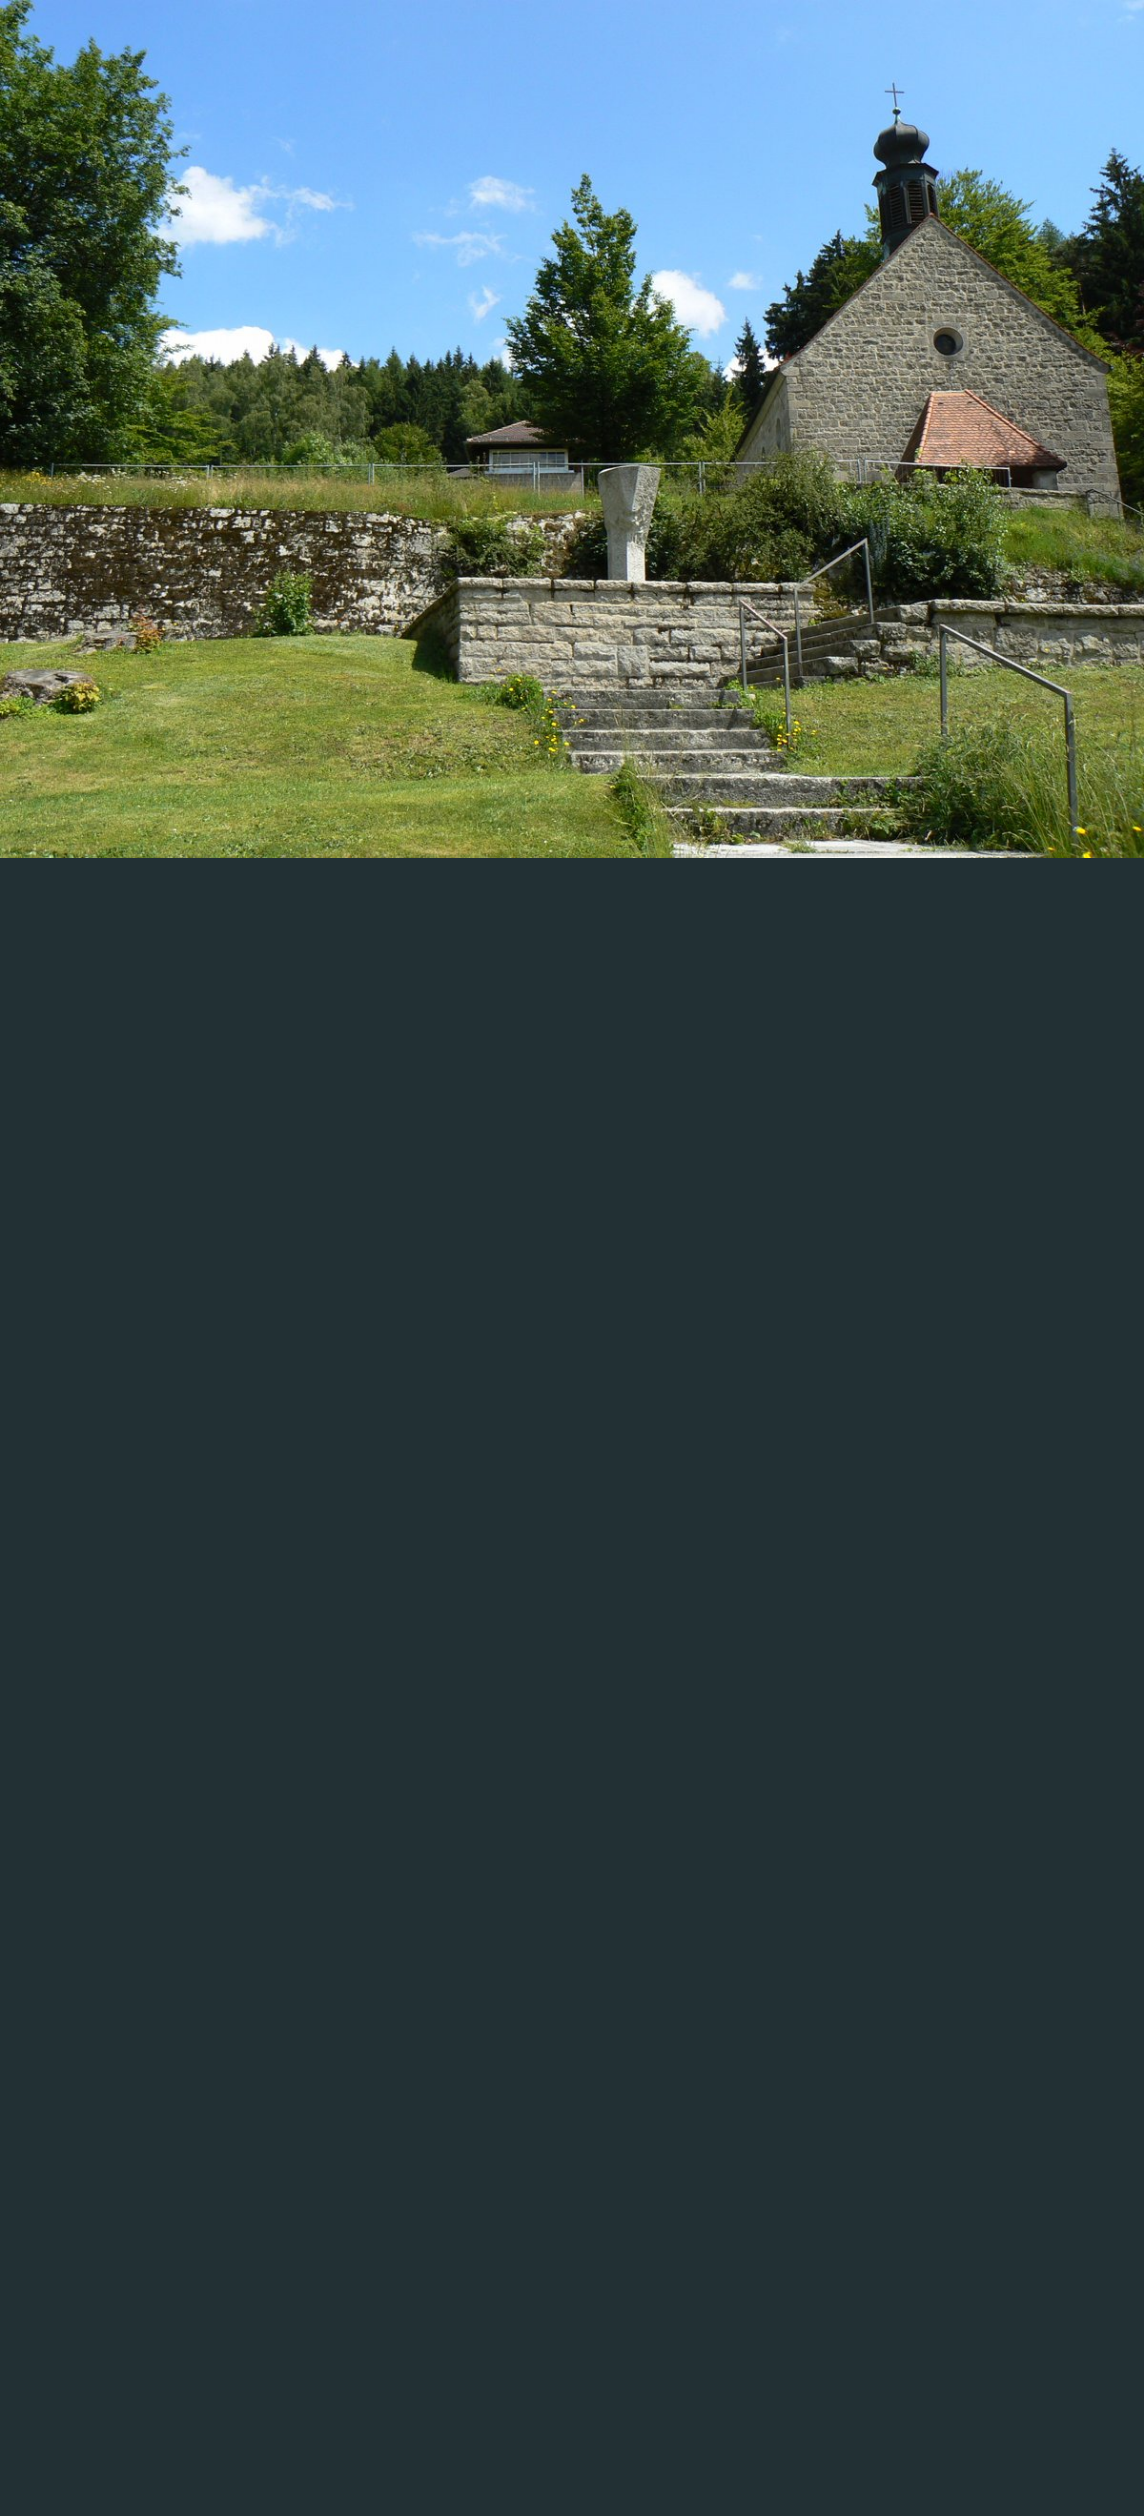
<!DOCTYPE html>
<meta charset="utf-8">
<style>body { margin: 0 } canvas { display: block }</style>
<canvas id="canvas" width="1144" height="2516"></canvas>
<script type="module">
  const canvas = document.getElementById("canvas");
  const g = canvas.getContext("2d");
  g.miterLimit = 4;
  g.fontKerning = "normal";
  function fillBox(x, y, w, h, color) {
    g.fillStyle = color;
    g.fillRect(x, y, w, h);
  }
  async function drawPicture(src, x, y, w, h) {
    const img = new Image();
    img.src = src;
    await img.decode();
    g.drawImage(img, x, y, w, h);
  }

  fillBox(0, 0, 1144, 2516, "#223034");
  await drawPicture("pic1.png", 0, 0, 1144, 858);
</script>
